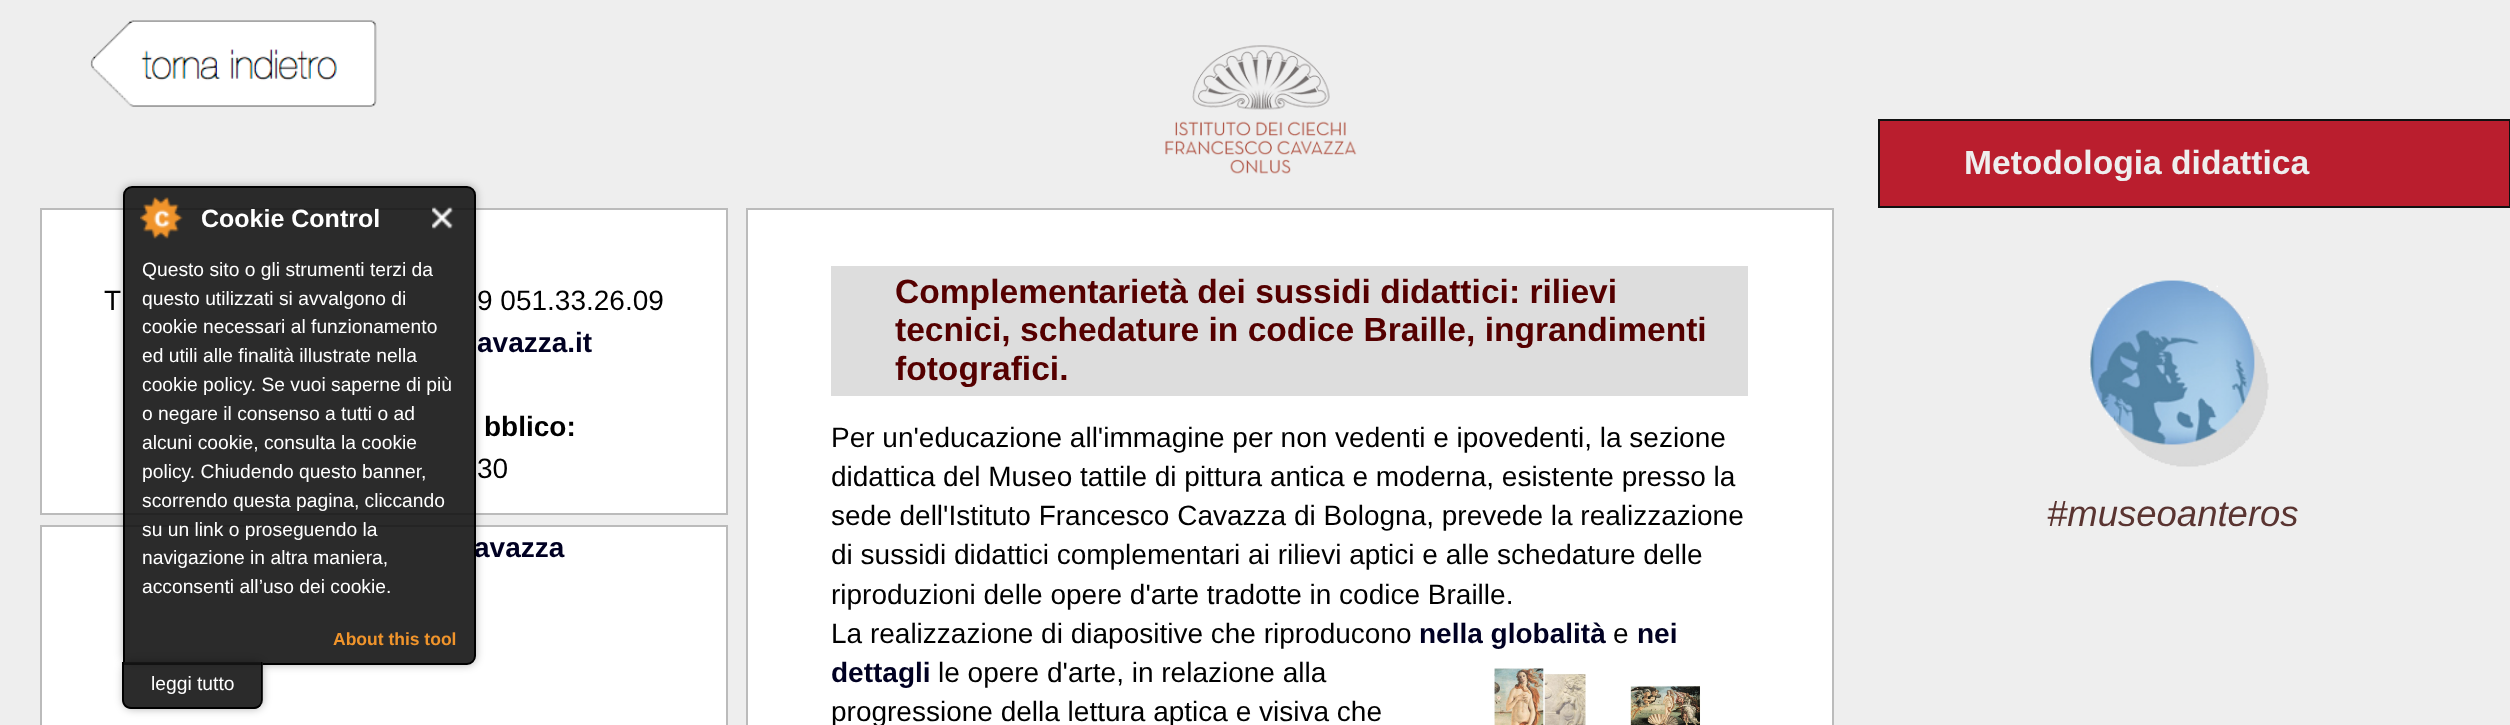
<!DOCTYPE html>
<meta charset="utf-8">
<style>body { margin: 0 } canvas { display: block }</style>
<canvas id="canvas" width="2510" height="725"></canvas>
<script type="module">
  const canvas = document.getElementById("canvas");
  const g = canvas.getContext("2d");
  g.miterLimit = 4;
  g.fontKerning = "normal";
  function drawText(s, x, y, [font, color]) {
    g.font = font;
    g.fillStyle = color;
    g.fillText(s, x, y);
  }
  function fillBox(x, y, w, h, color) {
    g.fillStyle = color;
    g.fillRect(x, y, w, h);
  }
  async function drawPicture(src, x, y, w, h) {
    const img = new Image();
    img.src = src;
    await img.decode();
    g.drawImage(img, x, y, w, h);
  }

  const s1 = ["bold 33.6px Liberation Sans", "#EEEEEE"];
  const s2 = ["28px Liberation Sans", "#000000"];
  const s3 = ["bold 28px Liberation Sans", "#000022"];
  const s4 = ["bold 28px Liberation Sans", "#000000"];
  const s5 = ["bold 33.6px Liberation Sans", "#550000"];
  const s6 = ["italic 36.5px Liberation Sans", "#5A3431"];
  const s7 = ["bold 25px Liberation Sans", "#FFFFFF"];
  const s8 = ["19.25px Liberation Sans", "#FFFFFF"];
  const s9 = ["bold 17.5px Liberation Sans", "#F0942B"];

  fillBox(0, 0, 2510, 725, "#EEEEEE");
  await drawPicture("pic1.png", 90, 20, 287, 87);
  await drawPicture("pic2.png", 1165, 45, 192, 129);
  g.fillStyle = "#BA1E2E";
  g.beginPath();
  g.rect(1879, 120, 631, 87);
  g.fill();
  g.strokeStyle = "#111111";
  g.lineWidth = 2;
  g.stroke();
  drawText("Metodologia didattica", 1964, 174, s1);
  g.fillStyle = "#FFFFFF";
  g.beginPath();
  g.rect(41, 209, 686, 305);
  g.fill();
  g.strokeStyle = "#BBBBBB";
  g.stroke();
  drawText("T", 104, 310, s2);
  drawText("9 051.33.26.09", 477, 310, s2);
  drawText("avazza.it", 477, 352, s3);
  drawText("bblico:", 484, 436, s4);
  drawText("30", 477, 478, s2);
  g.fillStyle = "#FFFFFF";
  g.beginPath();
  g.rect(41, 526, 686, 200);
  g.fill();
  g.stroke();
  drawText("avazza", 474, 557, s3);
  g.fillStyle = "#FFFFFF";
  g.beginPath();
  g.rect(747, 209, 1086, 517);
  g.fill();
  g.stroke();
  fillBox(831, 266, 917, 130, "#DDDDDD");
  drawText("Complementarietà dei sussidi didattici: rilievi", 895, 303, s5);
  drawText("tecnici, schedature in codice Braille, ingrandimenti", 895, 341, s5);
  drawText("fotografici.", 895, 380, s5);
  drawText("Per un'educazione all'immagine per non vedenti e ipovedenti, la sezione", 831, 447, s2);
  drawText("didattica del Museo tattile di pittura antica e moderna, esistente presso la", 831, 486, s2);
  drawText("sede dell'Istituto Francesco Cavazza di Bologna, prevede la realizzazione", 831, 525, s2);
  drawText("di sussidi didattici complementari ai rilievi aptici e alle schedature delle", 831, 564, s2);
  drawText("riproduzioni delle opere d'arte tradotte in codice Braille.", 831, 604, s2);
  drawText("nei", 1637, 643, s3);
  drawText("dettagli", 831, 682, s3);
  await drawPicture("pic3.png", 1494, 668, 92, 57);
  drawText("La realizzazione di diapositive che riproducono", 831, 643, s2);
  drawText("nella globalità", 1419, 643, s3);
  await drawPicture("pic4.png", 1630, 685, 71, 40);
  drawText("e", 1613, 643, s2);
  drawText("le opere d'arte, in relazione alla", 938, 682, s2);
  drawText("progressione della lettura aptica e visiva che", 831, 721, s2);
  await drawPicture("pic5.png", 2089, 280, 180, 187);
  drawText("#museoanteros", 2047, 526, s6);
  g.save();
  g.beginPath();
  g.moveTo(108, 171);
  g.lineTo(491, 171);
  g.lineTo(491, 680);
  g.lineTo(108, 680);
  g.closePath();
  g.moveTo(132, 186);
  g.lineTo(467, 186);
  g.bezierCurveTo(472, 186, 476, 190, 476, 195);
  g.lineTo(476, 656);
  g.bezierCurveTo(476, 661, 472, 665, 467, 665);
  g.lineTo(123, 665);
  g.lineTo(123, 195);
  g.bezierCurveTo(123, 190, 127, 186, 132, 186);
  g.closePath();
  g.clip("evenodd");
  g.fillStyle = "rgba(0, 0, 0, 0.3)";
  g.filter = "blur(4.5px)";
  g.beginPath();
  g.roundRect(123, 186, 353, 479, 9);
  g.fill();
  g.filter = "none";
  g.restore();
  g.fillStyle = "rgba(20, 20, 20, 0.9)";
  g.beginPath();
  g.roundRect(124, 187, 351, 477, [8, 8, 8, 0]);
  g.fill();
  g.strokeStyle = "#000000";
  g.stroke();
  await drawPicture("pic6.png", 140, 197, 43, 42);
  drawText("Cookie Control", 201, 227, s7);
  await drawPicture("pic7.png", 432, 206, 22, 24);
  drawText("Questo sito o gli strumenti terzi da", 142, 276, s8);
  drawText("questo utilizzati si avvalgono di", 142, 305, s8);
  drawText("cookie necessari al funzionamento", 142, 333, s8);
  drawText("ed utili alle finalità illustrate nella", 142, 362, s8);
  drawText("cookie policy. Se vuoi saperne di più", 142, 391, s8);
  drawText("o negare il consenso a tutti o ad", 142, 420, s8);
  drawText("alcuni cookie, consulta la cookie", 142, 449, s8);
  drawText("policy. Chiudendo questo banner,", 142, 478, s8);
  drawText("scorrendo questa pagina, cliccando", 142, 507, s8);
  drawText("su un link o proseguendo la", 142, 536, s8);
  drawText("navigazione in altra maniera,", 142, 564, s8);
  drawText("acconsenti all’uso dei cookie.", 142, 593, s8);
  drawText("About this tool", 333, 645, s9);
  g.save();
  g.beginPath();
  g.moveTo(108, 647);
  g.lineTo(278, 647);
  g.lineTo(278, 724);
  g.lineTo(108, 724);
  g.closePath();
  g.moveTo(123, 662);
  g.lineTo(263, 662);
  g.lineTo(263, 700);
  g.bezierCurveTo(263, 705, 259, 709, 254, 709);
  g.lineTo(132, 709);
  g.bezierCurveTo(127, 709, 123, 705, 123, 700);
  g.closePath();
  g.clip("evenodd");
  g.fillStyle = "rgba(0, 0, 0, 0.3)";
  g.filter = "blur(4.5px)";
  g.beginPath();
  g.roundRect(123, 662, 140, 47, 9);
  g.fill();
  g.filter = "none";
  g.restore();
  g.fillStyle = "rgba(20, 20, 20, 0.9)";
  g.beginPath();
  g.roundRect(123, 662, 140, 47, [0, 0, 9, 9]);
  g.fill();
  g.fillStyle = "#000000";
  g.beginPath();
  g.moveTo(122, 662);
  g.lineTo(262, 662);
  g.lineTo(262, 700);
  g.bezierCurveTo(262, 705, 259, 709, 254, 709);
  g.lineTo(131, 709);
  g.bezierCurveTo(126, 709, 122, 705, 122, 700);
  g.closePath();
  g.moveTo(124, 662);
  g.lineTo(261, 662);
  g.lineTo(261, 700);
  g.bezierCurveTo(261, 704, 258, 707, 254, 707);
  g.lineTo(131, 707);
  g.bezierCurveTo(127, 707, 124, 704, 124, 700);
  g.closePath();
  g.fill("evenodd");
  drawText("leggi tutto", 151, 690, s8);
</script>
